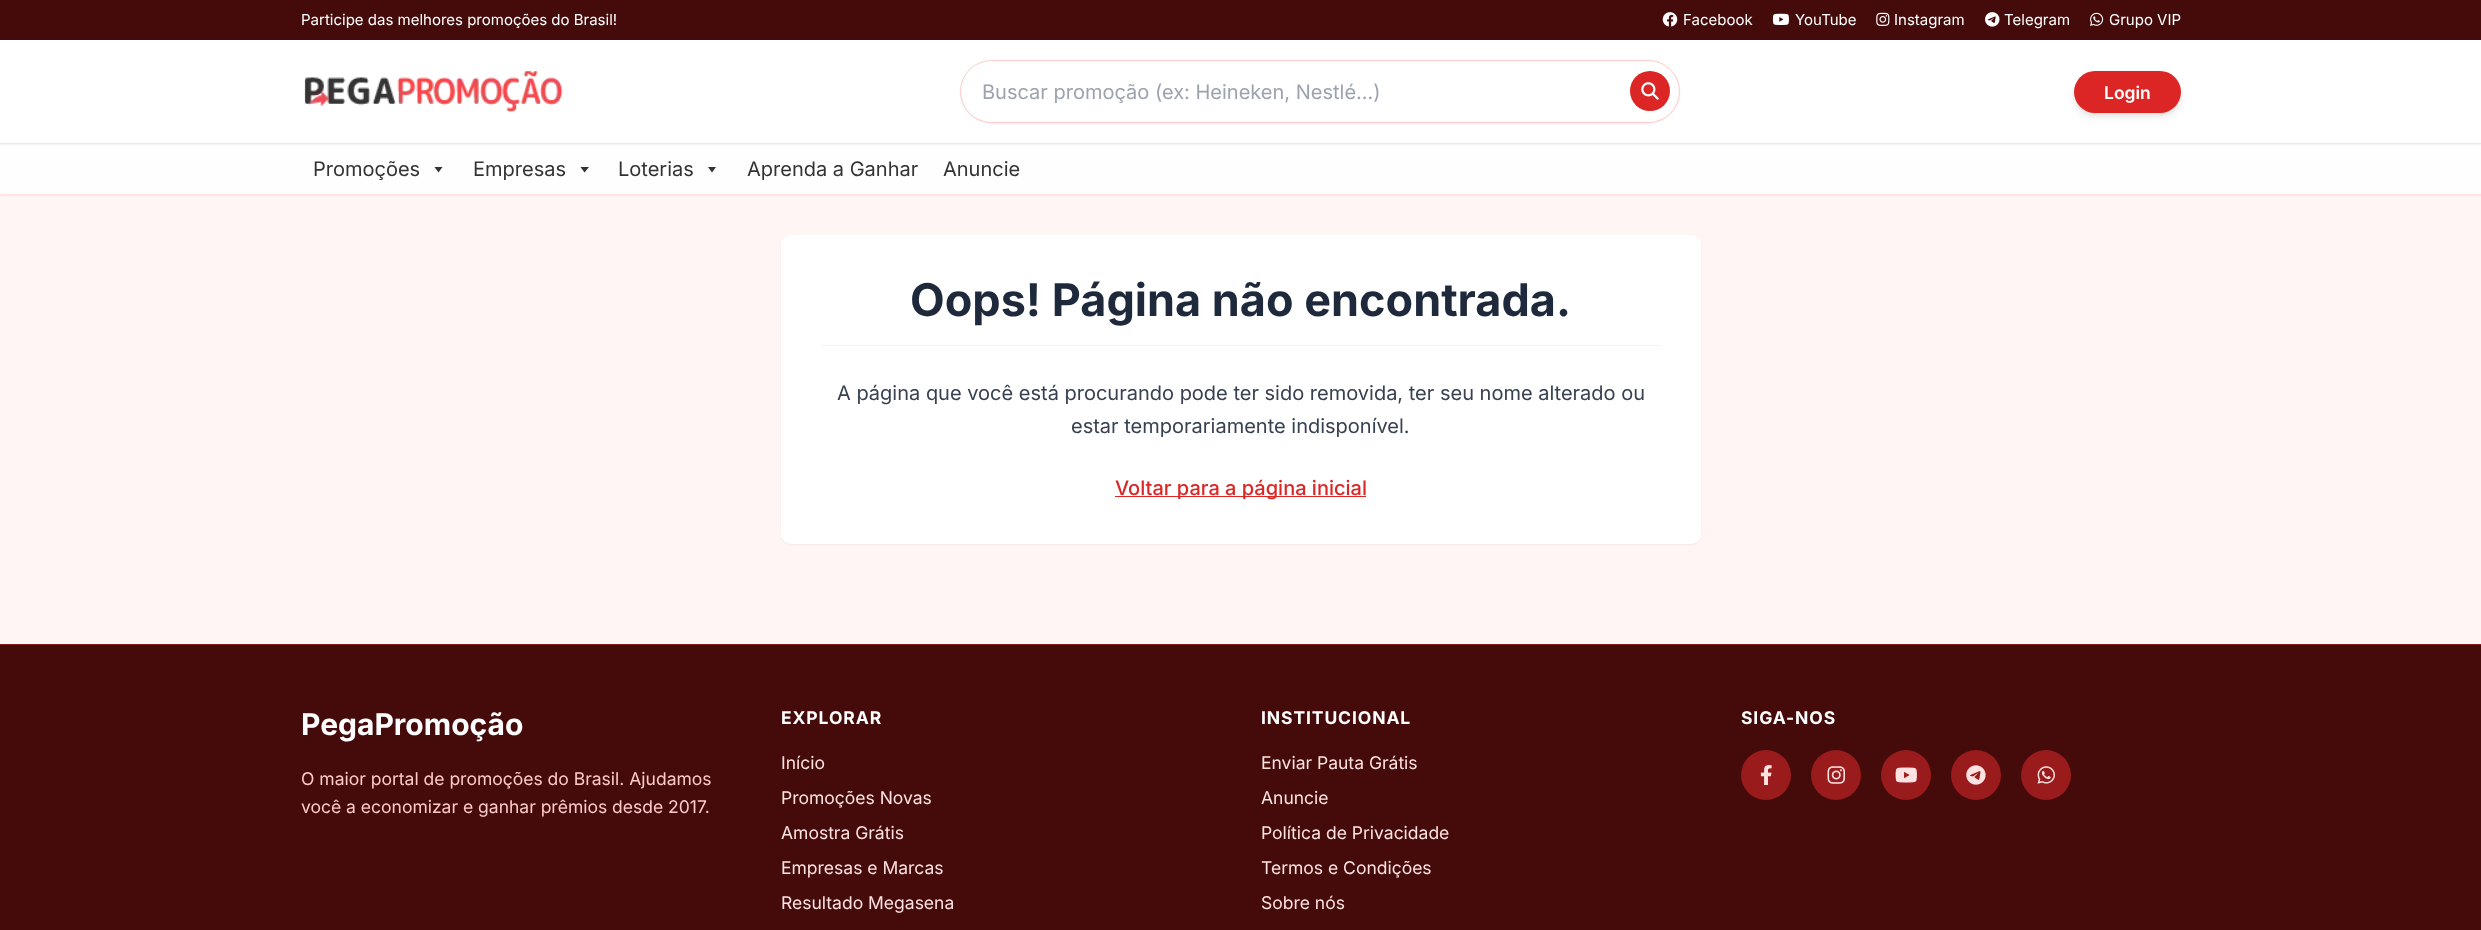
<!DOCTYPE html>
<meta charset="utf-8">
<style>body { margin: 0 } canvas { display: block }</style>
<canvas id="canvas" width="2481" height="930"></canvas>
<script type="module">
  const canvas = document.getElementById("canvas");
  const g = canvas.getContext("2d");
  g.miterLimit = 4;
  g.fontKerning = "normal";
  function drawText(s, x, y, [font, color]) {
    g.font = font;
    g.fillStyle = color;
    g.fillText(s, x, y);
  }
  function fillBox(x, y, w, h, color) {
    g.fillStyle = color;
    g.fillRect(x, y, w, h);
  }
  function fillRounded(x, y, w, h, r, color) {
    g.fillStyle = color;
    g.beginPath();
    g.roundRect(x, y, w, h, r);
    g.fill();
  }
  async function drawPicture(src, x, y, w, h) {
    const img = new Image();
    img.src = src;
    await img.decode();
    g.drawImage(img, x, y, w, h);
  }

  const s1 = ["15px Inter", "#FFFFFF"];
  const s2 = ["20px Inter", "#9CA3AF"];
  const s3 = ["600 17.5px Inter", "#FFFFFF"];
  const s4 = ["20px Inter", "#333333"];
  const s5 = ["bold 45px Inter", "#1E293B"];
  const s6 = ["20px Inter", "#374151"];
  const s7 = ["500 20px Inter", "#DC2626"];
  const s8 = ["bold 30px Inter", "#FFFFFF"];
  const s9 = ["17.5px Inter", "#FECACA"];
  const s10 = ["bold 17.5px Inter", "#FFFFFF"];
  const s11 = ["17.5px Inter", "#FEE2E2"];

  fillBox(0, 0, 2481, 930, "#FFF5F5");
  fillBox(0, 0, 2481, 40, "#450A0A");
  drawText("Participe das melhores promoções do Brasil!", 301, 25, s1);
  await drawPicture("pic1.png", 1662, 12, 16, 15);
  drawText("Facebook", 1683, 25, s1);
  await drawPicture("pic2.png", 1772, 13, 17, 12);
  drawText("YouTube", 1795, 25, s1);
  await drawPicture("pic3.png", 1876, 12, 14, 14);
  drawText("Instagram", 1894, 25, s1);
  await drawPicture("pic4.png", 1985, 12, 15, 15);
  drawText("Telegram", 2004, 25, s1);
  await drawPicture("pic5.png", 2090, 12, 14, 14);
  drawText("Grupo VIP", 2109, 25, s1);
  g.fillStyle = "rgba(0, 0, 0, 0.05)";
  g.filter = "blur(1px)";
  g.beginPath();
  g.rect(0, 145, 2481, 51);
  g.fill();
  g.filter = "none";
  fillBox(0, 144, 2481, 50, "#FFFEFE");
  g.fillStyle = "rgba(0, 0, 0, 0.05)";
  g.filter = "blur(1px)";
  g.beginPath();
  g.rect(0, 41, 2481, 104);
  g.fill();
  g.filter = "none";
  fillBox(0, 40, 2481, 103, "#FFFFFF");
  fillBox(0, 143, 2481, 1, "#FEE2E2");
  await drawPicture("pic6.png", 304, 71, 259, 41);
  g.fillStyle = "rgba(0, 0, 0, 0.05)";
  g.filter = "blur(1px)";
  g.beginPath();
  g.roundRect(960, 61, 720, 63, 31.5);
  g.fill();
  g.filter = "none";
  g.fillStyle = "#FFFFFF";
  g.beginPath();
  g.roundRect(960.5, 60.5, 719, 62, 31);
  g.fill();
  g.strokeStyle = "#FECACA";
  g.stroke();
  drawText("Buscar promoção (ex: Heineken, Nestlé...)", 982, 99, s2);
  g.fillStyle = "#DC2626";
  g.beginPath();
  g.arc(1650, 91, 20, 0, Math.PI * 2);
  g.fill();
  await drawPicture("pic7.png", 1641, 82, 18, 18);
  g.fillStyle = "rgba(0, 0, 0, 0.1)";
  g.filter = "blur(2.5px)";
  g.beginPath();
  g.roundRect(2076, 76, 103, 37, 18.5);
  g.fill();
  g.filter = "none";
  g.filter = "blur(4px)";
  g.beginPath();
  g.roundRect(2075, 78, 105, 38, 19);
  g.fill();
  g.filter = "none";
  fillRounded(2074, 71, 107, 42, 21, "#DC2626");
  drawText("Login", 2104, 99, s3);
  fillBox(0, 194, 2481, 1, "#FEE2E2");
  drawText("Promoções", 313, 176, s4);
  g.beginPath();
  g.moveTo(442.5, 167);
  g.lineTo(438.5, 172.5);
  g.lineTo(434.5, 167);
  g.closePath();
  g.fill();
  drawText("Empresas", 473, 176, s4);
  g.beginPath();
  g.moveTo(589, 167);
  g.lineTo(584.5, 172.5);
  g.lineTo(580.5, 167);
  g.closePath();
  g.fill();
  drawText("Loterias", 618, 176, s4);
  g.beginPath();
  g.moveTo(716, 167);
  g.lineTo(712, 172.5);
  g.lineTo(708, 167);
  g.closePath();
  g.fill();
  drawText("Aprenda a Ganhar", 747, 176, s4);
  drawText("Anuncie", 943, 176, s4);
  g.fillStyle = "rgba(0, 0, 0, 0.05)";
  g.filter = "blur(1px)";
  g.beginPath();
  g.roundRect(781, 236, 920, 309, 10);
  g.fill();
  g.filter = "none";
  fillRounded(781, 235, 920, 309, 10, "#FFFFFF");
  fillBox(821, 345, 840, 1, "#F3F4F6");
  drawText("Oops! Página não encontrada.", 910, 316, s5);
  drawText("A página que você está procurando pode ter sido removida, ter seu nome alterado ou", 837, 400, s6);
  drawText("estar temporariamente indisponível.", 1071, 433, s6);
  fillBox(1115, 496, 251, 1, "#DC2626");
  drawText("Voltar para a página inicial", 1115, 495, s7);
  fillBox(0, 645, 2481, 285, "#450A0A");
  fillBox(0, 644, 2481, 1, "#7F1D1D");
  drawText("PegaPromoção", 301, 735, s8);
  drawText("O maior portal de promoções do Brasil. Ajudamos", 301, 785, s9);
  drawText("você a economizar e ganhar prêmios desde 2017.", 301, 813, s9);
  g.letterSpacing = "0.9px";
  drawText("EXPLORAR", 781, 724, s10);
  g.letterSpacing = "0px";
  drawText("Início", 781, 769, s11);
  drawText("Promoções Novas", 781, 804, s11);
  drawText("Amostra Grátis", 781, 839, s11);
  drawText("Empresas e Marcas", 781, 874, s11);
  drawText("Resultado Megasena", 781, 909, s11);
  g.letterSpacing = "0.9px";
  drawText("INSTITUCIONAL", 1261, 724, s10);
  g.letterSpacing = "0px";
  drawText("Enviar Pauta Grátis", 1261, 769, s11);
  drawText("Anuncie", 1261, 804, s11);
  drawText("Política de Privacidade", 1261, 839, s11);
  drawText("Termos e Condições", 1261, 874, s11);
  drawText("Sobre nós", 1261, 909, s11);
  g.letterSpacing = "0.9px";
  drawText("SIGA-NOS", 1741, 724, s10);
  g.fillStyle = "#991B1B";
  g.beginPath();
  g.arc(1766, 775, 25, 0, Math.PI * 2);
  g.fill();
  await drawPicture("pic8.png", 1760, 765, 12, 20);
  g.beginPath();
  g.arc(1836, 775, 25, 0, Math.PI * 2);
  g.fill();
  await drawPicture("pic9.png", 1827, 766, 18, 18);
  g.beginPath();
  g.arc(1906, 775, 25, 0, Math.PI * 2);
  g.fill();
  await drawPicture("pic10.png", 1895, 767, 22, 16);
  g.beginPath();
  g.arc(1976, 775, 25, 0, Math.PI * 2);
  g.fill();
  await drawPicture("pic11.png", 1966, 765, 20, 20);
  g.beginPath();
  g.arc(2046, 775, 25, 0, Math.PI * 2);
  g.fill();
  await drawPicture("pic12.png", 2037, 766, 18, 18);
</script>
